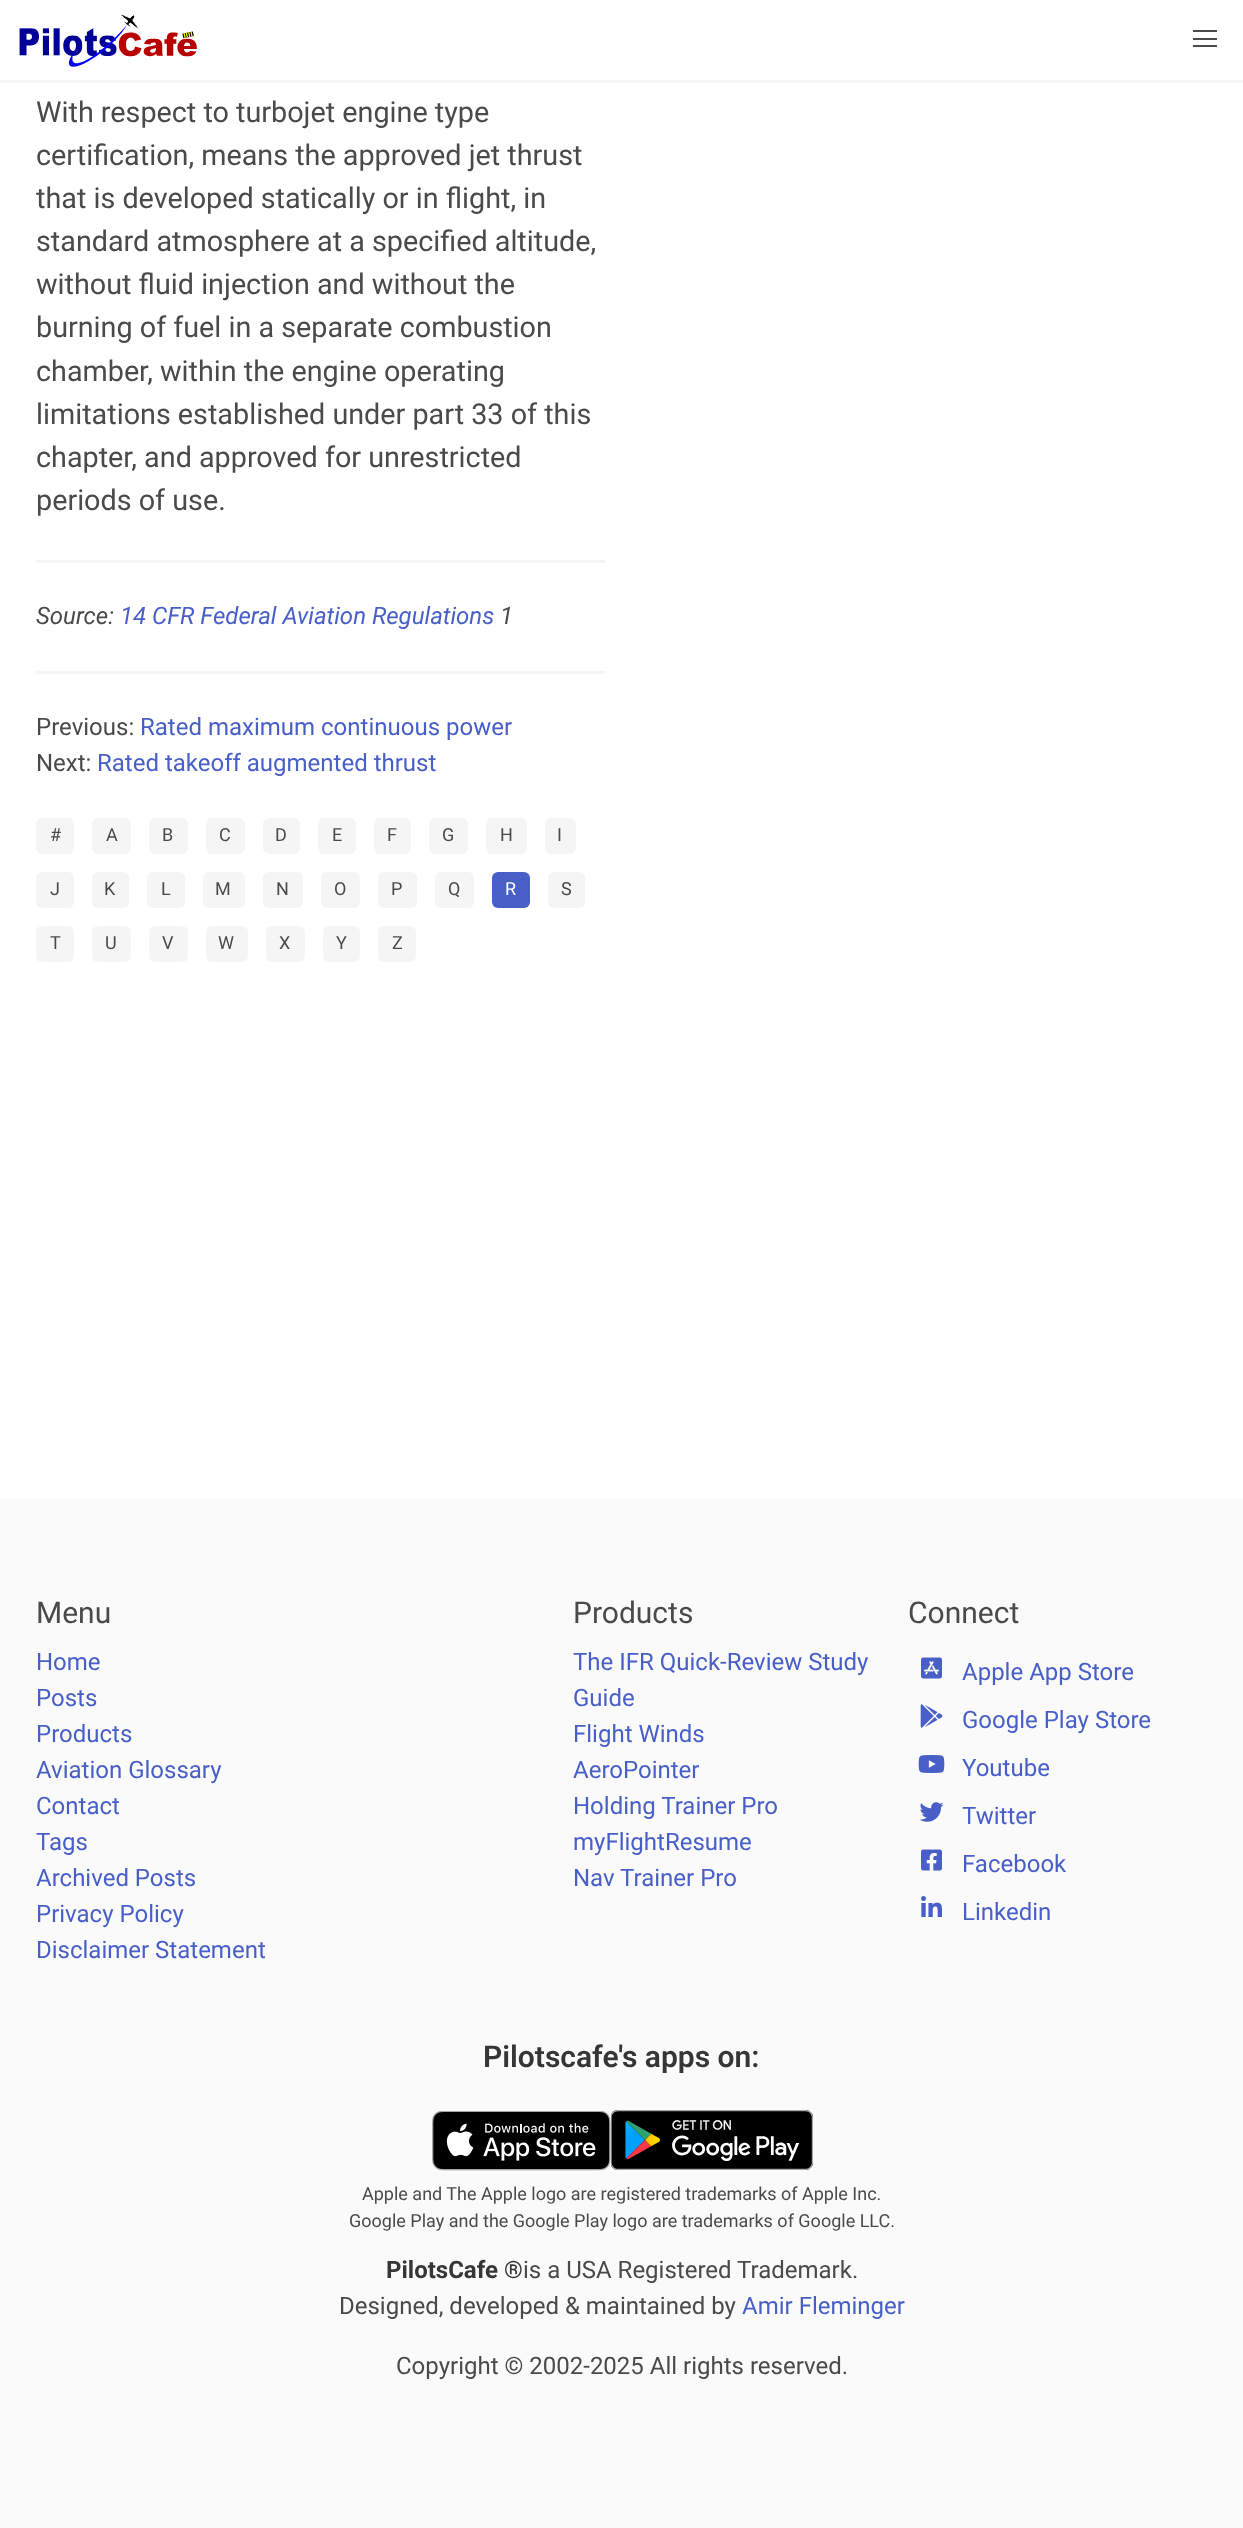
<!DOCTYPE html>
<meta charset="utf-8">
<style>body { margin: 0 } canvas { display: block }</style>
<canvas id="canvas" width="1243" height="2528"></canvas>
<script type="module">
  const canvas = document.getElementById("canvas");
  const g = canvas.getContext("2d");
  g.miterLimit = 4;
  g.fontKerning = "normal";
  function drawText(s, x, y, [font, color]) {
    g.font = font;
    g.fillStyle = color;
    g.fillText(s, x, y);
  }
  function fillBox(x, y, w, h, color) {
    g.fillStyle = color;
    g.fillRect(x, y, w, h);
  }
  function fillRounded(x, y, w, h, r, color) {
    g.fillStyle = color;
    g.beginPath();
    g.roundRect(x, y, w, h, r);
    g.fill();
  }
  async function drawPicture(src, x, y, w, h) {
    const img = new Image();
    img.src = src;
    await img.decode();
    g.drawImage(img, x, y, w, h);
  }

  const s1 = ["28.75px Roboto", "#4A4A4A"];
  const s2 = ["italic 24px Roboto", "#4A4A4A"];
  const s3 = ["italic 24px Roboto", "#485FC7"];
  const s4 = ["24px Roboto", "#4A4A4A"];
  const s5 = ["24px Roboto", "#485FC7"];
  const s6 = ["18px Roboto", "#4A4A4A"];
  const s7 = ["18px Roboto", "#FFFFFF"];
  const s8 = ["30px Roboto", "#4A4A4A"];
  const s9 = ["600 30px Roboto", "#363636"];
  const s10 = ["bold 24px Roboto", "#363636"];

  fillBox(0, 0, 1243, 2528, "#FFFFFF");
  g.fillStyle = "#F5F5F5";
  g.beginPath();
  g.moveTo(0, 80);
  g.lineTo(0, 83);
  g.lineTo(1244, 83);
  g.lineTo(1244, 3);
  g.lineTo(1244, 80);
  g.closePath();
  g.fill();
  await drawPicture("pic1.png", 19, 14, 178, 53);
  fillBox(1193, 30, 24, 2, "#4A4A4A");
  fillBox(1193, 38, 24, 2, "#4A4A4A");
  fillBox(1193, 45, 24, 2, "#4A4A4A");
  drawText("With respect to turbojet engine type", 36, 122, s1);
  drawText("certification, means the approved jet thrust", 36, 165, s1);
  drawText("that is developed statically or in flight, in", 36, 208, s1);
  drawText("standard atmosphere at a specified altitude,", 36, 251, s1);
  drawText("without fluid injection and without the", 36, 294, s1);
  drawText("burning of fuel in a separate combustion", 36, 337, s1);
  drawText("chamber, within the engine operating", 36, 381, s1);
  drawText("limitations established under part 33 of this", 36, 424, s1);
  drawText("chapter, and approved for unrestricted", 36, 467, s1);
  drawText("periods of use.", 36, 510, s1);
  fillBox(36, 560, 569, 3, "#F5F5F5");
  drawText("Source:", 36, 624, s2);
  drawText("14 CFR Federal Aviation Regulations", 120, 624, s3);
  drawText("1", 500, 624, s2);
  fillBox(36, 671, 569, 3, "#F5F5F5");
  drawText("Previous:", 36, 735, s4);
  drawText("Rated maximum continuous power", 140, 735, s5);
  drawText("Next:", 36, 771, s4);
  drawText("Rated takeoff augmented thrust", 97, 771, s5);
  fillRounded(36, 818, 38, 36, 6, "#F5F5F5");
  drawText("#", 50, 841, s6);
  fillRounded(92, 818, 39, 36, 6, "#F5F5F5");
  drawText("A", 106, 841, s6);
  fillRounded(149, 818, 39, 36, 6, "#F5F5F5");
  drawText("B", 162, 841, s6);
  fillRounded(206, 818, 39, 36, 6, "#F5F5F5");
  drawText("C", 219, 841, s6);
  fillRounded(263, 818, 37, 36, 6, "#F5F5F5");
  drawText("D", 275, 841, s6);
  fillRounded(318, 818, 38, 36, 6, "#F5F5F5");
  drawText("E", 332, 841, s6);
  fillRounded(374, 818, 37, 36, 6, "#F5F5F5");
  drawText("F", 387, 841, s6);
  fillRounded(429, 818, 39, 36, 6, "#F5F5F5");
  drawText("G", 442, 841, s6);
  fillRounded(486, 818, 41, 36, 6, "#F5F5F5");
  drawText("H", 500, 841, s6);
  fillRounded(545, 818, 31, 36, 6, "#F5F5F5");
  drawText("I", 557, 841, s6);
  fillRounded(36, 872, 38, 36, 6, "#F5F5F5");
  drawText("J", 50, 895, s6);
  fillRounded(92, 872, 37, 36, 6, "#F5F5F5");
  drawText("K", 104, 895, s6);
  fillRounded(147, 872, 38, 36, 6, "#F5F5F5");
  drawText("L", 161, 895, s6);
  fillRounded(203, 872, 42, 36, 6, "#F5F5F5");
  drawText("M", 215, 895, s6);
  fillRounded(263, 872, 40, 36, 6, "#F5F5F5");
  drawText("N", 276, 895, s6);
  fillRounded(321, 872, 39, 36, 6, "#F5F5F5");
  drawText("O", 334, 895, s6);
  fillRounded(378, 872, 39, 36, 6, "#F5F5F5");
  drawText("P", 391, 895, s6);
  fillRounded(435, 872, 39, 36, 6, "#F5F5F5");
  drawText("Q", 448, 895, s6);
  fillRounded(492, 872, 38, 36, 6, "#485FC7");
  drawText("R", 505, 895, s7);
  fillRounded(548, 872, 37, 36, 6, "#F5F5F5");
  drawText("S", 561, 895, s6);
  fillRounded(36, 926, 38, 36, 6, "#F5F5F5");
  drawText("T", 50, 949, s6);
  fillRounded(92, 926, 39, 36, 6, "#F5F5F5");
  drawText("U", 105, 949, s6);
  fillRounded(149, 926, 39, 36, 6, "#F5F5F5");
  drawText("V", 162, 949, s6);
  fillRounded(206, 926, 42, 36, 6, "#F5F5F5");
  drawText("W", 218, 949, s6);
  fillRounded(266, 926, 39, 36, 6, "#F5F5F5");
  drawText("X", 279, 949, s6);
  fillRounded(323, 926, 37, 36, 6, "#F5F5F5");
  drawText("Y", 336, 949, s6);
  fillRounded(378, 926, 38, 36, 6, "#F5F5F5");
  drawText("Z", 392, 949, s6);
  fillBox(0, 1499, 1243, 1029, "#FAFAFA");
  drawText("Menu", 36, 1623, s8);
  drawText("Home", 36, 1670, s5);
  drawText("Posts", 36, 1706, s5);
  drawText("Products", 36, 1742, s5);
  drawText("Aviation Glossary", 36, 1778, s5);
  drawText("Contact", 36, 1814, s5);
  drawText("Tags", 36, 1850, s5);
  drawText("Archived Posts", 36, 1886, s5);
  drawText("Privacy Policy", 36, 1922, s5);
  drawText("Disclaimer Statement", 36, 1958, s5);
  drawText("Products", 573, 1623, s8);
  drawText("The IFR Quick-Review Study", 573, 1670, s5);
  drawText("Guide", 573, 1706, s5);
  drawText("Flight Winds", 573, 1742, s5);
  drawText("AeroPointer", 573, 1778, s5);
  drawText("Holding Trainer Pro", 573, 1814, s5);
  drawText("myFlightResume", 573, 1850, s5);
  drawText("Nav Trainer Pro", 573, 1886, s5);
  drawText("Connect", 908, 1623, s8);
  await drawPicture("pic2.png", 921, 1657, 21, 22);
  drawText("Apple App Store", 962, 1680, s5);
  await drawPicture("pic3.png", 920, 1704, 23, 24);
  drawText("Google Play Store", 962, 1728, s5);
  await drawPicture("pic4.png", 918, 1755, 27, 18);
  drawText("Youtube", 962, 1776, s5);
  await drawPicture("pic5.png", 919, 1802, 25, 20);
  drawText("Twitter", 962, 1824, s5);
  await drawPicture("pic6.png", 921, 1849, 21, 22);
  drawText("Facebook", 962, 1872, s5);
  await drawPicture("pic7.png", 921, 1896, 21, 21);
  drawText("Linkedin", 962, 1920, s5);
  drawText("Pilotscafe's apps on:", 483, 2067, s9);
  await drawPicture("pic8.png", 432, 2111, 179, 60);
  await drawPicture("pic9.png", 611, 2110, 202, 60);
  drawText("Apple and The Apple logo are registered trademarks of Apple Inc.", 362, 2200, s6);
  drawText("Google Play and the Google Play logo are trademarks of Google LLC.", 349, 2227, s6);
  drawText("PilotsCafe ®", 386, 2278, s10);
  drawText("is a USA Registered Trademark.", 523, 2278, s4);
  drawText("Designed, developed & maintained by", 339, 2314, s4);
  drawText("Amir Fleminger", 742, 2314, s5);
  drawText("Copyright © 2002-2025 All rights reserved.", 396, 2374, s4);
</script>
